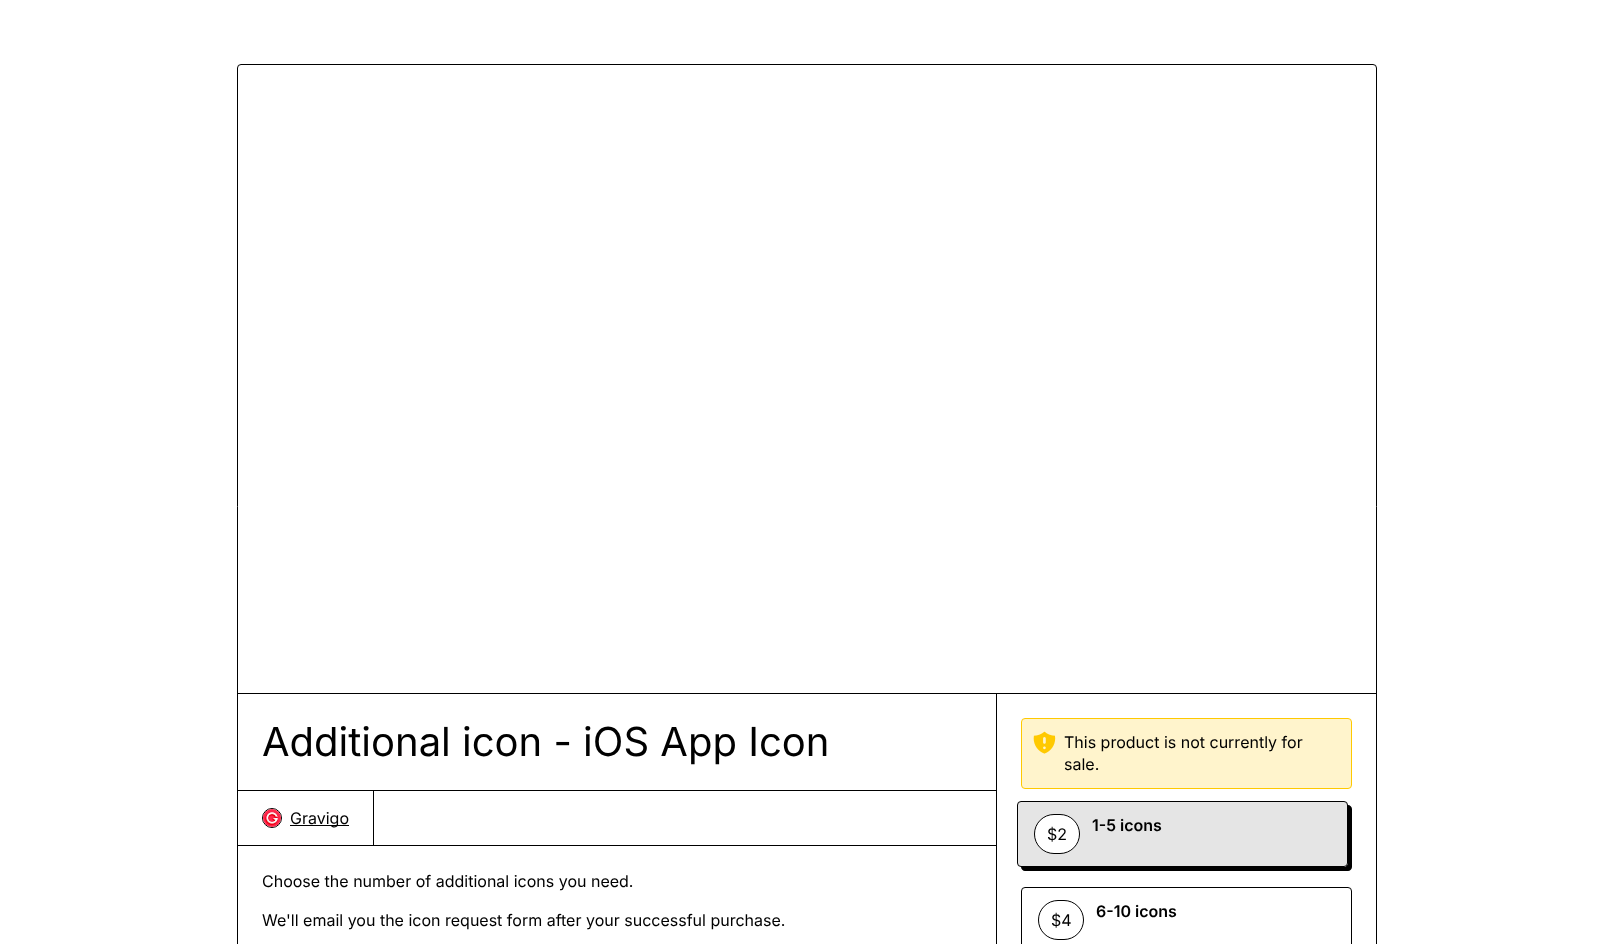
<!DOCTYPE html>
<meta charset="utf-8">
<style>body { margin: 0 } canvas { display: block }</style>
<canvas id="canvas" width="1614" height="944"></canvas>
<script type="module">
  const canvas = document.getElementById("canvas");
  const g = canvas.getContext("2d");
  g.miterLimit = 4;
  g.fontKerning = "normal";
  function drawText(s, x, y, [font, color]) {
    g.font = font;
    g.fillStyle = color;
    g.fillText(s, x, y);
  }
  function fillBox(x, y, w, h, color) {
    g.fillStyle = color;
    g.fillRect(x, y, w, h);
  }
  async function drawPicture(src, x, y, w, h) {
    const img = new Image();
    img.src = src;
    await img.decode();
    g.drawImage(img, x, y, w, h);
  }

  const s1 = ["40px Inter", "#000000"];
  const s2 = ["16px Inter", "#000000"];
  const s3 = ["600 16px Inter", "#000000"];

  fillBox(0, 0, 1614, 944, "#FFFFFF");
  g.beginPath();
  g.roundRect(237.5, 64.5, 1139, 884, 3.5);
  g.strokeStyle = "#000000";
  g.stroke();
  fillBox(238, 693, 1138, 1, "#000000");
  fillBox(996, 694, 1, 250, "#000000");
  drawText("Additional icon - iOS App Icon", 262, 756, s1);
  fillBox(374, 790, 622, 1, "#000000");
  g.strokeRect(237.5, 790.5, 136, 55);
  g.beginPath();
  g.arc(272, 818, 9.5, 0, Math.PI * 2);
  g.stroke();
  await drawPicture("pic1.png", 263, 809, 18, 18);
  fillBox(290, 825, 59, 1, "#000000");
  drawText("Gravigo", 290, 824, s2);
  fillBox(374, 845, 622, 1, "#000000");
  drawText("Choose the number of additional icons you need.", 262, 887, s2);
  drawText("We'll email you the icon request form after your successful purchase.", 262, 926, s2);
  g.fillStyle = "#FFF4CC";
  g.beginPath();
  g.roundRect(1021.5, 718.5, 330, 70, 3.5);
  g.fill();
  g.strokeStyle = "#FFC900";
  g.stroke();
  await drawPicture("pic2.png", 1033, 731, 23, 23);
  drawText("This product is not currently for", 1064, 748, s2);
  drawText("sale.", 1064, 770, s2);
  g.beginPath();
  g.moveTo(1021, 867);
  g.bezierCurveTo(1021, 869, 1023, 871, 1025, 871);
  g.lineTo(1348, 871);
  g.bezierCurveTo(1350, 871, 1352, 869, 1352, 867);
  g.lineTo(1352, 809);
  g.bezierCurveTo(1352, 807, 1350, 805, 1348, 805);
  g.lineTo(1348, 863);
  g.bezierCurveTo(1348, 865, 1346, 867, 1344, 867);
  g.closePath();
  g.fill();
  g.fillStyle = "rgba(0, 0, 0, 0.1)";
  g.beginPath();
  g.roundRect(1017.5, 801.5, 330, 65, 3.5);
  g.fill();
  g.strokeStyle = "#000000";
  g.stroke();
  g.fillStyle = "#FFFFFF";
  g.beginPath();
  g.roundRect(1034.5, 814.5, 45, 39, 19.5);
  g.fill();
  g.stroke();
  drawText("$2", 1047, 840, s2);
  drawText("1-5 icons", 1092, 831, s3);
  g.beginPath();
  g.roundRect(1021.5, 887.5, 330, 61, 3.5);
  g.stroke();
  g.beginPath();
  g.roundRect(1038.5, 900.5, 45, 39, 19.5);
  g.stroke();
  drawText("$4", 1051, 926, s2);
  drawText("6-10 icons", 1096, 917, s3);
</script>
